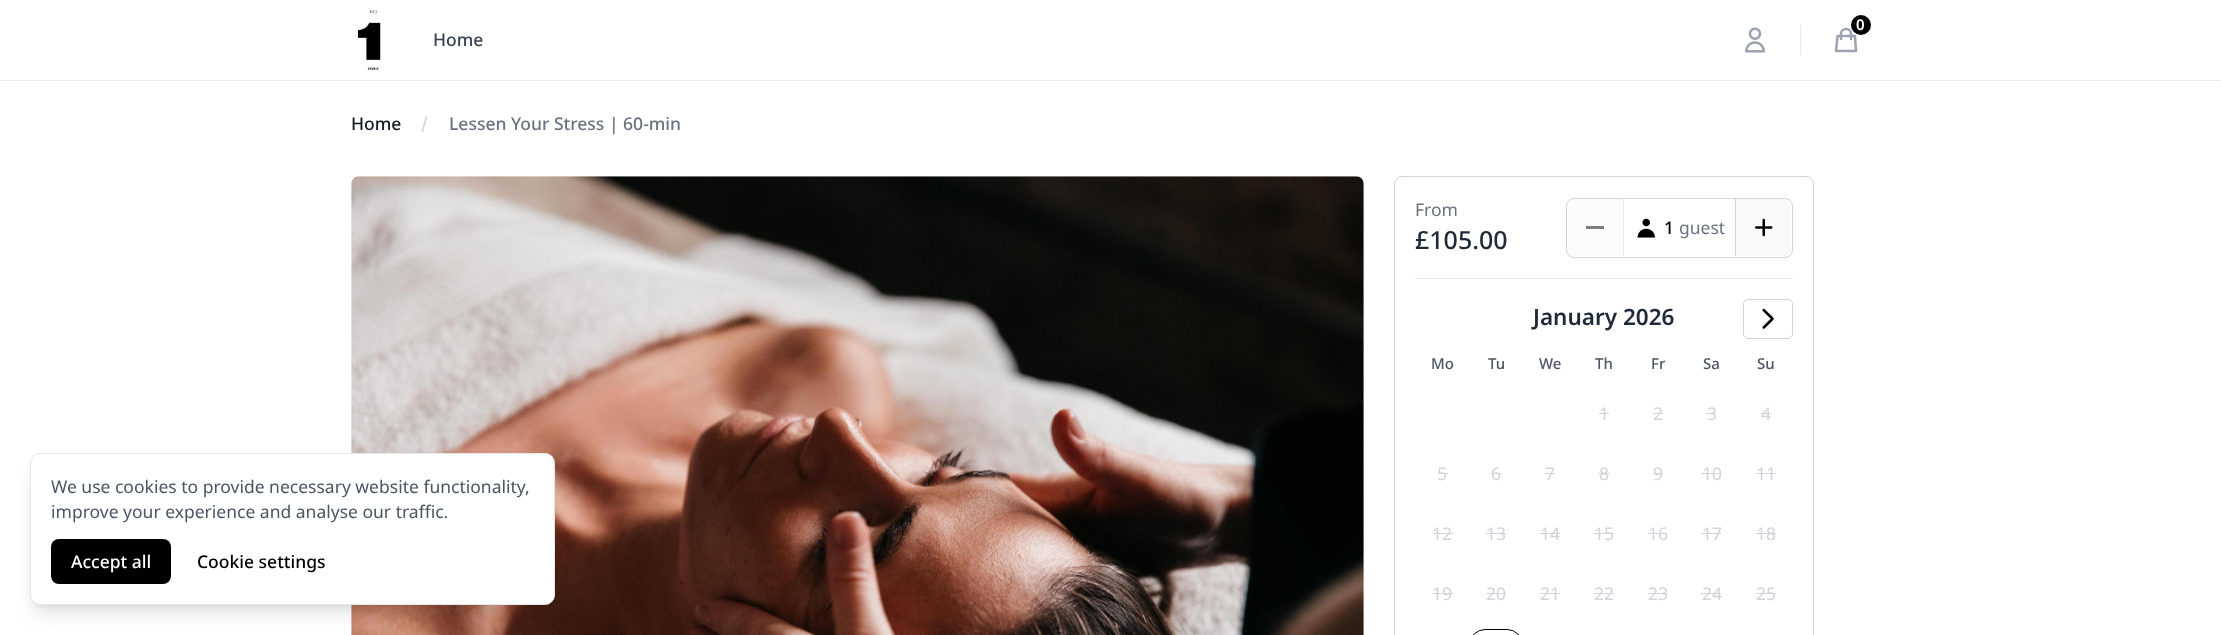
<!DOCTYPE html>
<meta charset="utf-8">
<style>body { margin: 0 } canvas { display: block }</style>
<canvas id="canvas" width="2221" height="635"></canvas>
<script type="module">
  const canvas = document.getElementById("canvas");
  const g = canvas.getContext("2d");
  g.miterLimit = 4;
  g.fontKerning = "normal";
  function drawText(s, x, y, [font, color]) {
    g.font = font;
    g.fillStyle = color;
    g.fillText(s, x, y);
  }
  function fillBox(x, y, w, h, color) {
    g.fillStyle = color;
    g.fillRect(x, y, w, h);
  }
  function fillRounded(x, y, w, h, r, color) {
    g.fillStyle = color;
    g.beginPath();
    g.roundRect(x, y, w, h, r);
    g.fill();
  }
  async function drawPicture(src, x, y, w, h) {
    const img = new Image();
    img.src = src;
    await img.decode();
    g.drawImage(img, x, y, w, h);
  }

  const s1 = ["600 15px Noto Sans", "#FFFFFF"];
  const s2 = ["500 17.5px Noto Sans", "#374151"];
  const s3 = ["17.5px Noto Sans", "#4B5563"];
  const s4 = ["500 17.5px Noto Sans", "#FFFFFF"];
  const s5 = ["500 17.5px Noto Sans", "#000000"];
  const s6 = ["500 17.5px Noto Sans", "#111827"];
  const s7 = ["500 17.5px Noto Sans", "#6B7280"];
  const s8 = ["17.5px Noto Sans", "#6B7280"];
  const s9 = ["500 25px Noto Sans", "#1F2937"];
  const s10 = ["600 22.5px Noto Sans", "#1F2937"];
  const s11 = ["500 15px Noto Sans", "#4B5563"];
  const s12 = ["17.5px Noto Sans", "#D1D5DB"];

  fillBox(0, 0, 2221, 635, "#FFFFFF");
  fillBox(0, 80, 2221, 1, "#E5E7EB");
  await drawPicture("pic1.png", 357, 10, 24, 60);
  await drawPicture("pic2.png", 1745, 27, 20, 26);
  fillBox(1800, 25, 1, 30, "#E5E7EB");
  g.beginPath();
  g.moveTo(1851, 39);
  g.lineTo(1851, 34);
  g.bezierCurveTo(1851, 31, 1849, 29, 1846, 29);
  g.bezierCurveTo(1843.5, 29, 1841, 31, 1841, 34);
  g.lineTo(1841, 39);
  g.moveTo(1837.5, 36);
  g.lineTo(1855, 36);
  g.lineTo(1856, 51);
  g.lineTo(1836, 51);
  g.closePath();
  g.strokeStyle = "#9CA3AF";
  g.lineWidth = 2.5;
  g.lineCap = "round";
  g.lineJoin = "round";
  g.stroke();
  g.fillStyle = "#000000";
  g.beginPath();
  g.arc(1861, 25, 10, 0, Math.PI * 2);
  g.fill();
  drawText("0", 1856, 30, s1);
  drawText("Home", 433, 46, s2);
  fillRounded(351, 176, 1013, 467, 8, "#F9FAFB");
  await drawPicture("pic3.png", 351, 176, 1013, 459);
  g.fillStyle = "rgba(0, 0, 0, 0.1)";
  g.filter = "blur(4px)";
  g.beginPath();
  g.roundRect(35, 463, 515, 142, 5);
  g.fill();
  g.filter = "none";
  g.filter = "blur(9.5px)";
  g.beginPath();
  g.roundRect(34, 469, 517, 145, 6);
  g.fill();
  g.filter = "none";
  g.fillStyle = "#FFFFFF";
  g.beginPath();
  g.roundRect(30.5, 453.5, 524, 151, 9.5);
  g.fill();
  g.strokeStyle = "#E5E7EB";
  g.lineWidth = 1;
  g.lineJoin = "miter";
  g.stroke();
  drawText("We use cookies to provide necessary website functionality,", 51, 493, s3);
  drawText("improve your experience and analyse our traffic.", 51, 518, s3);
  fillRounded(51, 539, 120, 45, 8, "#000000");
  drawText("Accept all", 71, 568, s4);
  drawText("Cookie settings", 197, 568, s5);
  drawText("Home", 351, 130, s6);
  g.fillStyle = "#D1D5DB";
  g.beginPath();
  g.moveTo(427.5, 116.5);
  g.lineTo(425.5, 116.5);
  g.lineTo(421.5, 132);
  g.lineTo(423, 132);
  g.closePath();
  g.fill();
  drawText("Lessen Your Stress | 60-min", 449, 130, s7);
  g.beginPath();
  g.roundRect(1394.5, 176.5, 419, 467, 7.5);
  g.strokeStyle = "#D1D5DB";
  g.stroke();
  fillBox(1415, 278, 378, 1, "#E5E7EB");
  drawText("From", 1415, 216, s8);
  drawText("£105.00", 1415, 249, s9);
  g.beginPath();
  g.roundRect(1566.5, 198.5, 226, 59, 7.5);
  g.stroke();
  g.fillStyle = "rgba(249, 250, 251, 0.5)";
  g.beginPath();
  g.roundRect(1568, 199, 55, 57, [6, 0, 0, 6]);
  g.fill();
  fillBox(1623, 199, 1, 57, "#E8EAED");
  fillBox(1586, 226, 18, 3, "#7E7E7F");
  await drawPicture("pic4.png", 1637, 218, 18, 20);
  drawText("1", 1664, 234, s5);
  drawText("guest", 1679, 234, s8);
  g.fillStyle = "#F9FAFB";
  g.beginPath();
  g.roundRect(1736, 199, 55, 57, [0, 6, 6, 0]);
  g.fill();
  fillBox(1735, 199, 1, 57, "#D1D5DB");
  await drawPicture("pic5.png", 1755, 218, 18, 19);
  g.beginPath();
  g.roundRect(1743.5, 299.5, 49, 39, 4.5);
  g.stroke();
  await drawPicture("pic6.png", 1762, 308, 12, 21);
  drawText("January 2026", 1533, 325, s10);
  drawText("Mo", 1431, 369, s11);
  drawText("Tu", 1488, 369, s11);
  drawText("We", 1539, 369, s11);
  drawText("Th", 1595, 369, s11);
  drawText("Fr", 1651, 369, s11);
  drawText("Sa", 1703, 369, s11);
  drawText("Su", 1757, 369, s11);
  drawText("1", 1599, 420, s12);
  fillBox(1599, 413, 10, 1, "#D1D5DB");
  drawText("2", 1653, 420, s12);
  fillBox(1653, 413, 10, 1, "#D1D5DB");
  drawText("3", 1707, 420, s12);
  fillBox(1706, 413, 10, 1, "#D1D5DB");
  drawText("4", 1761, 420, s12);
  fillBox(1761, 413, 10, 1, "#D1D5DB");
  drawText("5", 1437, 480, s12);
  fillBox(1438, 473, 10, 1, "#D1D5DB");
  drawText("6", 1491, 480, s12);
  fillBox(1491, 473, 10, 1, "#D1D5DB");
  drawText("7", 1545, 480, s12);
  fillBox(1545, 473, 10, 1, "#D1D5DB");
  drawText("8", 1599, 480, s12);
  fillBox(1599, 473, 10, 1, "#D1D5DB");
  drawText("9", 1653, 480, s12);
  fillBox(1653, 473, 10, 1, "#D1D5DB");
  drawText("10", 1702, 480, s12);
  fillBox(1701, 473, 20, 1, "#D1D5DB");
  drawText("11", 1756, 480, s12);
  fillBox(1756, 473, 20, 1, "#D1D5DB");
  drawText("12", 1432, 540, s12);
  fillBox(1433, 533, 20, 1, "#D1D5DB");
  drawText("13", 1486, 540, s12);
  fillBox(1486, 533, 20, 1, "#D1D5DB");
  drawText("14", 1540, 540, s12);
  fillBox(1540, 533, 20, 1, "#D1D5DB");
  drawText("15", 1594, 540, s12);
  fillBox(1594, 533, 20, 1, "#D1D5DB");
  drawText("16", 1648, 540, s12);
  fillBox(1648, 533, 20, 1, "#D1D5DB");
  drawText("17", 1702, 540, s12);
  fillBox(1701, 533, 20, 1, "#D1D5DB");
  drawText("18", 1756, 540, s12);
  fillBox(1756, 533, 20, 1, "#D1D5DB");
  drawText("19", 1432, 600, s12);
  fillBox(1433, 593, 20, 1, "#D1D5DB");
  drawText("20", 1486, 600, s12);
  fillBox(1486, 593, 20, 1, "#D1D5DB");
  drawText("21", 1540, 600, s12);
  fillBox(1540, 593, 20, 1, "#D1D5DB");
  drawText("22", 1594, 600, s12);
  fillBox(1594, 593, 20, 1, "#D1D5DB");
  drawText("23", 1648, 600, s12);
  fillBox(1648, 593, 20, 1, "#D1D5DB");
  drawText("24", 1702, 600, s12);
  fillBox(1701, 593, 20, 1, "#D1D5DB");
  drawText("25", 1756, 600, s12);
  fillBox(1756, 593, 20, 1, "#D1D5DB");
  g.beginPath();
  g.roundRect(1469.5, 629.5, 53, 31, 24.5);
  g.strokeStyle = "#000000";
  g.stroke();
</script>
